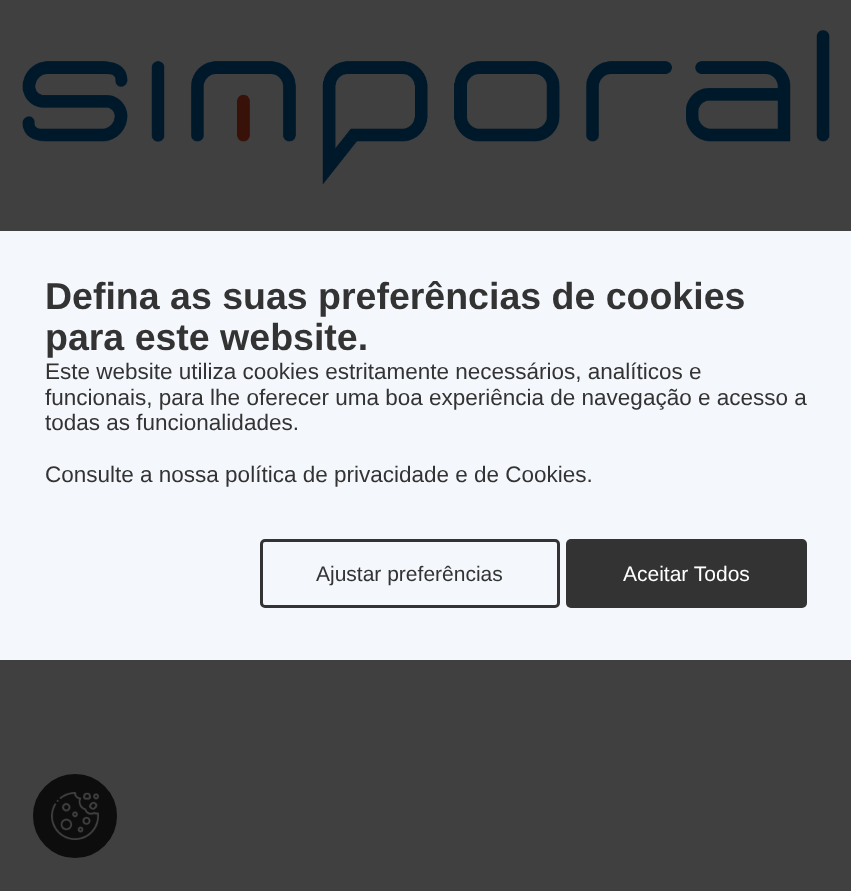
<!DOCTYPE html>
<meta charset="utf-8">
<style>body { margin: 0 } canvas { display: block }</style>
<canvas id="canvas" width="851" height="891"></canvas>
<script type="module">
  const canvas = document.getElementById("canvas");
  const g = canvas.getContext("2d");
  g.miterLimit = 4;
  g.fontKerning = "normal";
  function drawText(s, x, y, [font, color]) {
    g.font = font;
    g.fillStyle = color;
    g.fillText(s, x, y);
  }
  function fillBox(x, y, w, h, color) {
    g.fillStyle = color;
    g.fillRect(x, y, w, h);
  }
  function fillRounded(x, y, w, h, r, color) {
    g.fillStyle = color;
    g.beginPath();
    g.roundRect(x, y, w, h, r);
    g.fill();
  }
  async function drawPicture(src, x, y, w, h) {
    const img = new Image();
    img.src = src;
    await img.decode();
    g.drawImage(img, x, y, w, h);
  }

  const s1 = ["bold 37.5px Liberation Sans", "#333333"];
  const s2 = ["22.5px Liberation Sans", "#333333"];
  const s3 = ["21px Liberation Sans", "#333333"];
  const s4 = ["21px Liberation Sans", "#FFFFFF"];

  fillBox(0, 0, 851, 891, "#404040");
  await drawPicture("pic1.png", 22, 30, 808, 155);
  fillBox(0, 231, 851, 429, "#F4F7FC");
  drawText("Defina as suas preferências de cookies", 45, 309, s1);
  drawText("para este website.", 45, 350, s1);
  drawText("Este website utiliza cookies estritamente necessários, analíticos e", 45, 379, s2);
  drawText("funcionais, para lhe oferecer uma boa experiência de navegação e acesso a", 45, 405, s2);
  drawText("todas as funcionalidades.", 45, 430, s2);
  drawText("Consulte a nossa política de privacidade e de Cookies.", 45, 482, s2);
  g.beginPath();
  g.roundRect(261.5, 540.5, 297, 66, 3.5);
  g.strokeStyle = "#333333";
  g.lineWidth = 3;
  g.stroke();
  drawText("Ajustar preferências", 316, 581, s3);
  fillRounded(566, 539, 241, 69, 5, "#333333");
  drawText("Aceitar Todos", 623, 581, s4);
  g.fillStyle = "#0D0D0D";
  g.beginPath();
  g.arc(75, 816, 43.5, 0, Math.PI * 2);
  g.fill();
  g.strokeStyle = "#404040";
  g.stroke();
  await drawPicture("pic2.png", 51, 792, 48, 48);
</script>
